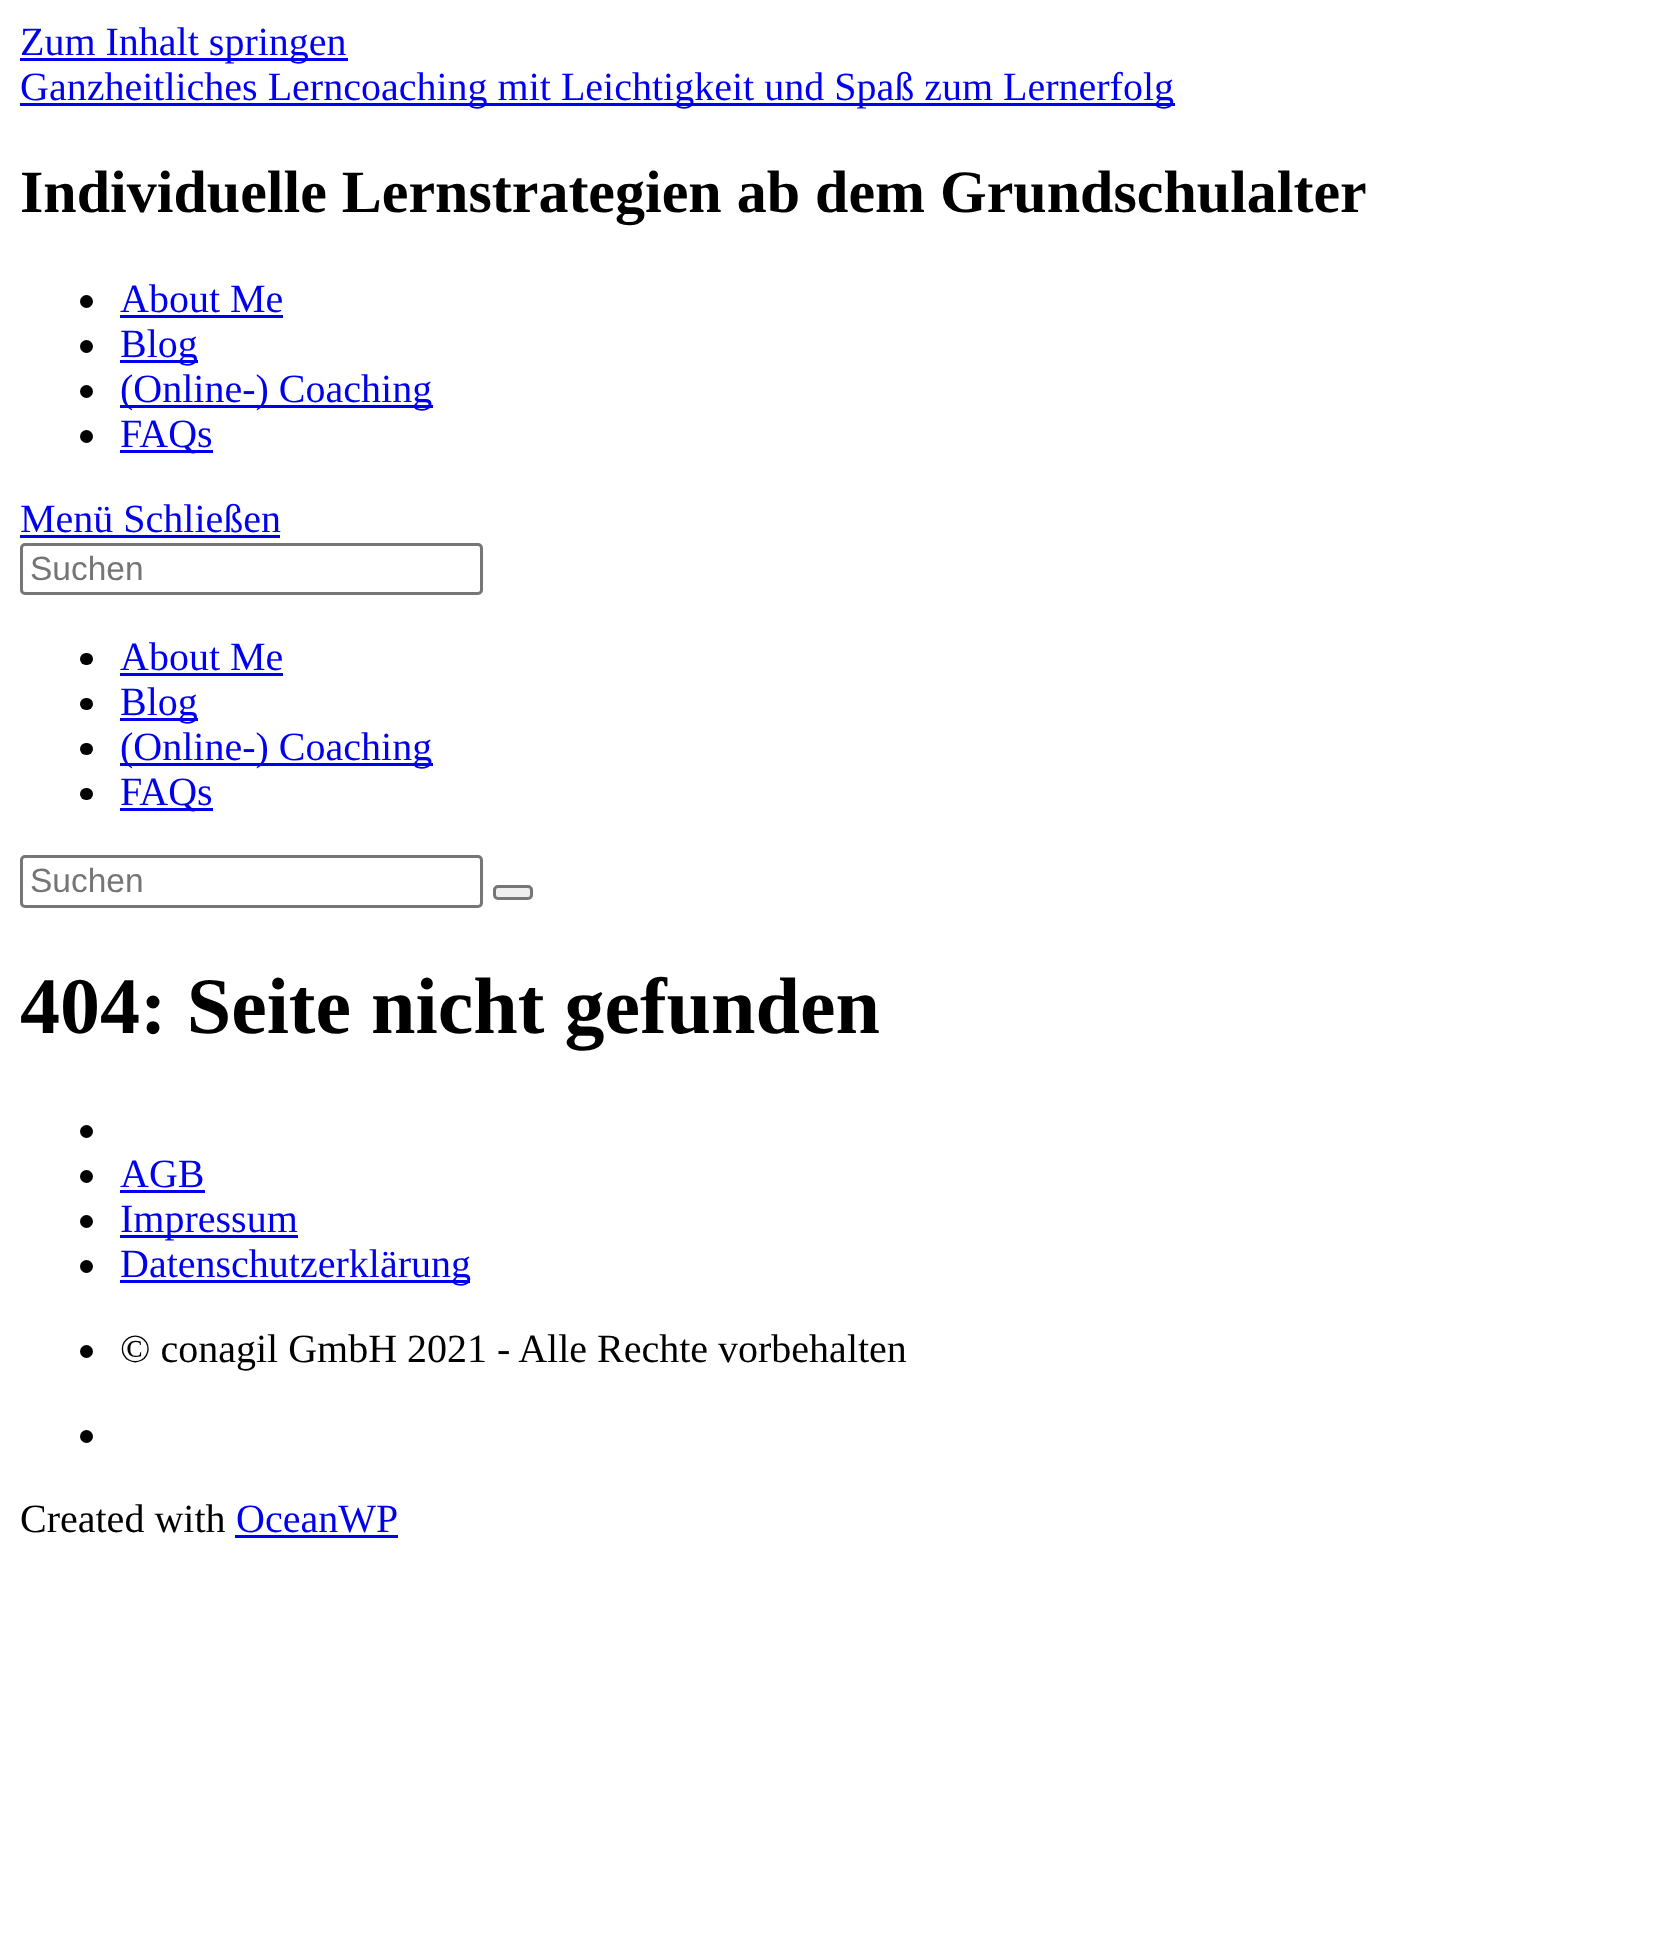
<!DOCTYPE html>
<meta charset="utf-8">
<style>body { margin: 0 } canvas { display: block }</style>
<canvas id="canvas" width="1670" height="1945"></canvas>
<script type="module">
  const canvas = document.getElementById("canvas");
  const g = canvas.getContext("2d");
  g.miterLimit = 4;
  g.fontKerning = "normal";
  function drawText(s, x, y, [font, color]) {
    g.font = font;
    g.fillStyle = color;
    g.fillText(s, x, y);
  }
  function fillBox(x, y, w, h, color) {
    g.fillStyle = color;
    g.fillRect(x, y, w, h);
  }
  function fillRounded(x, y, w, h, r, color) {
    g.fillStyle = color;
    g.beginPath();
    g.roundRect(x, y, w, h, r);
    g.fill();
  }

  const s1 = ["40px Liberation Serif", "#0000EE"];
  const s2 = ["bold 60px Liberation Serif", "#000000"];
  const s3 = ["33.5px Liberation Sans", "#757575"];
  const s4 = ["bold 80px Liberation Serif", "#000000"];
  const s5 = ["40px Liberation Serif", "#000000"];

  fillBox(0, 0, 1670, 1945, "#FFFFFF");
  fillBox(20, 58, 328, 3, "#0000EE");
  drawText("Zum Inhalt springen", 20, 55, s1);
  fillBox(20, 103, 1155, 3, "#0000EE");
  drawText("Ganzheitliches Lerncoaching mit Leichtigkeit und Spaß zum Lernerfolg", 20, 100, s1);
  drawText("Individuelle Lernstrategien ab dem Grundschulalter", 20, 212, s2);
  g.beginPath();
  g.arc(86.5, 301.5, 6.5, 0, Math.PI * 2);
  g.fill();
  drawText("About Me", 120, 312, s1);
  fillBox(120, 315, 163, 3, "#0000EE");
  g.fillStyle = "#000000";
  g.beginPath();
  g.arc(86.5, 346.5, 6.5, 0, Math.PI * 2);
  g.fill();
  fillBox(120, 360, 78, 3, "#0000EE");
  drawText("Blog", 120, 357, s1);
  g.fillStyle = "#000000";
  g.beginPath();
  g.arc(86.5, 391.5, 6.5, 0, Math.PI * 2);
  g.fill();
  fillBox(120, 405, 313, 3, "#0000EE");
  drawText("(Online-) Coaching", 120, 402, s1);
  g.fillStyle = "#000000";
  g.beginPath();
  g.arc(86.5, 436.5, 6.5, 0, Math.PI * 2);
  g.fill();
  fillBox(120, 450, 93, 3, "#0000EE");
  drawText("FAQs", 120, 447, s1);
  drawText("Menü Schließen", 20, 532, s1);
  fillBox(20, 535, 260, 3, "#0000EE");
  g.beginPath();
  g.roundRect(21.5, 544.5, 460, 49, 3.5);
  g.strokeStyle = "#767676";
  g.lineWidth = 3;
  g.stroke();
  drawText("Suchen", 30, 580, s3);
  fillRounded(80, 653, 13, 12, 6, "#000000");
  drawText("About Me", 120, 670, s1);
  fillBox(120, 673, 163, 3, "#0000EE");
  fillRounded(80, 698, 13, 12, 6, "#000000");
  fillBox(120, 718, 78, 3, "#0000EE");
  drawText("Blog", 120, 715, s1);
  fillRounded(80, 743, 13, 12, 6, "#000000");
  fillBox(120, 763, 313, 3, "#0000EE");
  drawText("(Online-) Coaching", 120, 760, s1);
  fillRounded(80, 788, 13, 12, 6, "#000000");
  fillBox(120, 808, 93, 3, "#0000EE");
  drawText("FAQs", 120, 805, s1);
  g.beginPath();
  g.roundRect(21.5, 856.5, 460, 50, 3.5);
  g.stroke();
  drawText("Suchen", 30, 892, s3);
  g.fillStyle = "#EFEFEF";
  g.beginPath();
  g.roundRect(494.5, 886.5, 37, 12, 3.5);
  g.fill();
  g.stroke();
  drawText("404: Seite nicht gefunden", 20, 1033, s4);
  g.beginPath();
  g.arc(86.5, 1131.5, 6.5, 0, Math.PI * 2);
  g.fill();
  g.beginPath();
  g.arc(86.5, 1176.5, 6.5, 0, Math.PI * 2);
  g.fill();
  drawText("AGB", 120, 1187, s1);
  fillBox(120, 1190, 85, 3, "#0000EE");
  g.fillStyle = "#000000";
  g.beginPath();
  g.arc(86.5, 1221.5, 6.5, 0, Math.PI * 2);
  g.fill();
  fillBox(120, 1235, 178, 3, "#0000EE");
  drawText("Impressum", 120, 1232, s1);
  g.fillStyle = "#000000";
  g.beginPath();
  g.arc(86.5, 1266.5, 6.5, 0, Math.PI * 2);
  g.fill();
  fillBox(120, 1280, 350, 3, "#0000EE");
  drawText("Datenschutzerklärung", 120, 1277, s1);
  g.fillStyle = "#000000";
  g.beginPath();
  g.arc(86.5, 1351.5, 6.5, 0, Math.PI * 2);
  g.fill();
  drawText("© conagil GmbH 2021 - Alle Rechte vorbehalten", 120, 1362, s5);
  g.beginPath();
  g.arc(86.5, 1436.5, 6.5, 0, Math.PI * 2);
  g.fill();
  drawText("Created with", 20, 1532, s5);
  drawText("OceanWP", 236, 1532, s1);
  fillBox(235, 1535, 163, 3, "#0000EE");
</script>
